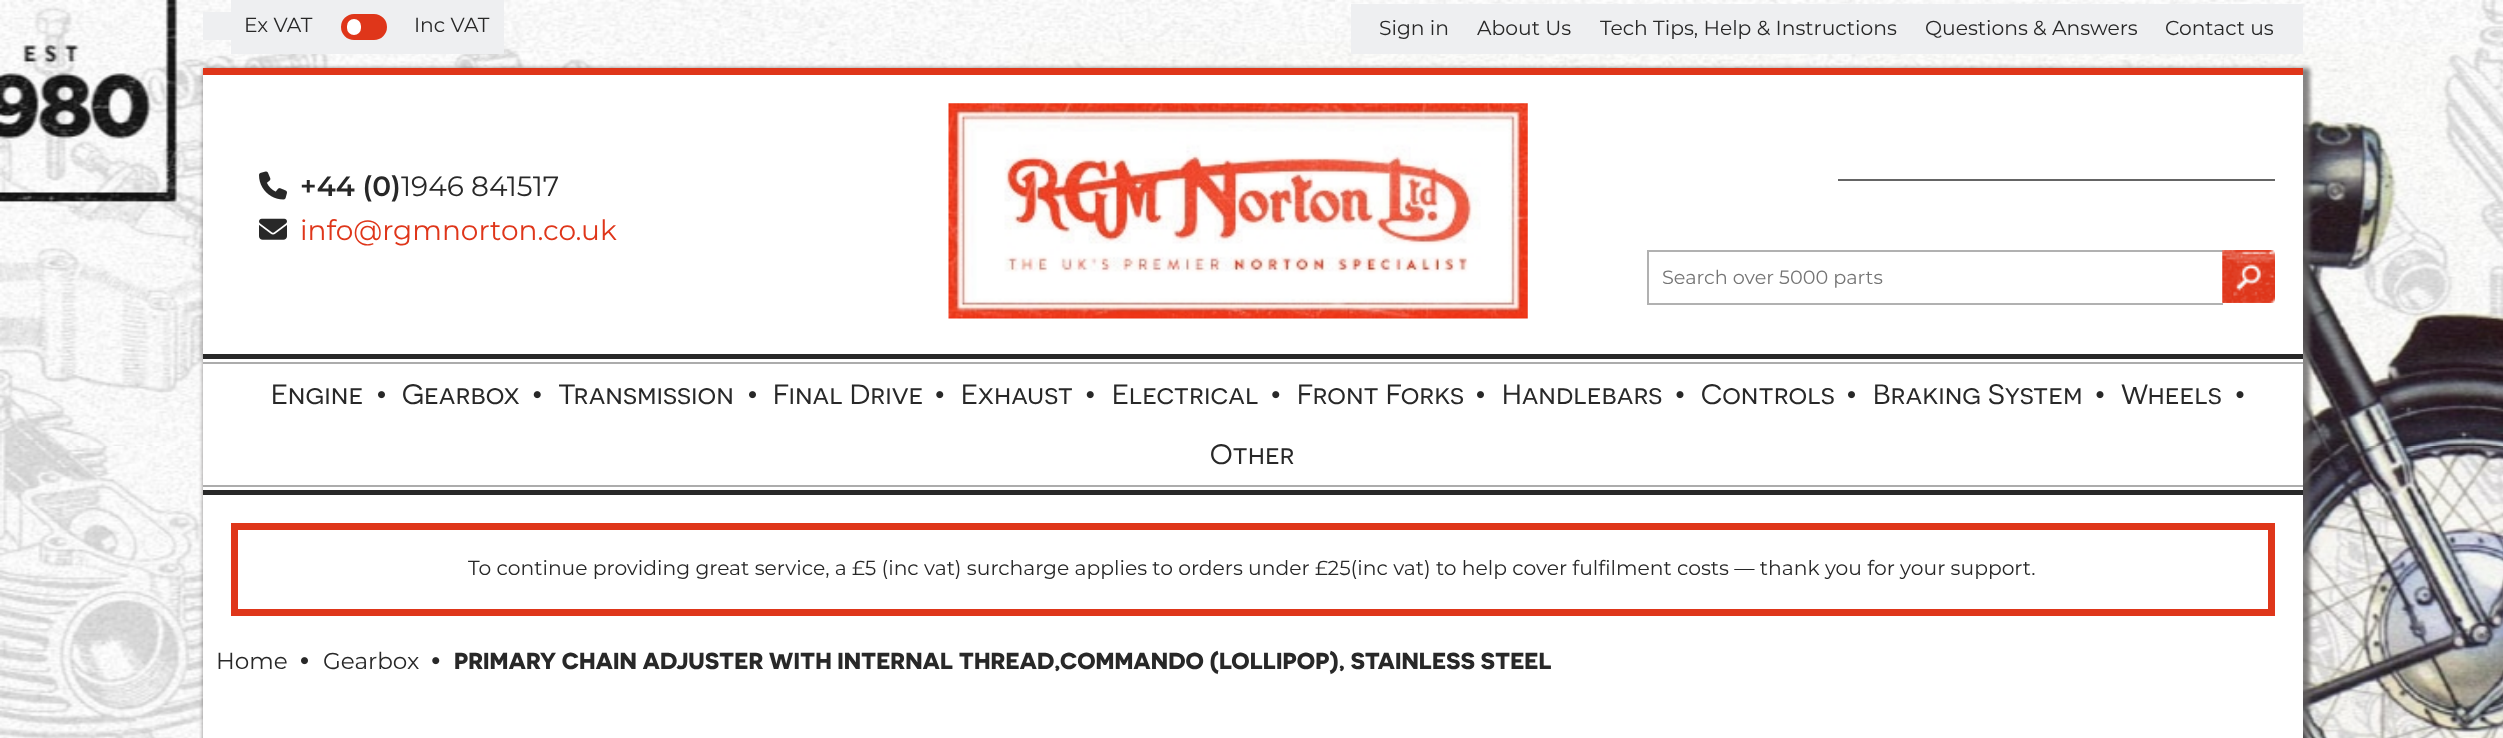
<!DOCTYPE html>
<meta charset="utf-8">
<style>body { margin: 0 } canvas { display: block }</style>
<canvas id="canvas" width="2503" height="738"></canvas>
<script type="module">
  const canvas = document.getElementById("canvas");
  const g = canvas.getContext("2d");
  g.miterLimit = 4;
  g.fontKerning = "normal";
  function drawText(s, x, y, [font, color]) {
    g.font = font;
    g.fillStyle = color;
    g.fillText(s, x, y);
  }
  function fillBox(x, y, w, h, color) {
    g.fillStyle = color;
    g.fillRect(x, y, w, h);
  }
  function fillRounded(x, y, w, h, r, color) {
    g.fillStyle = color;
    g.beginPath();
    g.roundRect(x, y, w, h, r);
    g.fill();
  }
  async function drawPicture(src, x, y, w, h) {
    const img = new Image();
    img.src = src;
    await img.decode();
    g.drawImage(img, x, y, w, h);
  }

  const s1 = ["20.3px Montserrat", "#282828"];
  const s2 = ["600 28px Montserrat", "#282828"];
  const s3 = ["28px Montserrat", "#282828"];
  const s4 = ["28px Montserrat", "#DF361A"];
  const s5 = ["19.25px Montserrat", "#757575"];
  const s6 = ["28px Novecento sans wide", "#282828"];
  const s7 = ["23.1px Montserrat", "#282828"];
  const s8 = ["bold 23.1px Novecento sans wide", "#282828"];

  fillBox(0, 0, 2503, 738, "#FFFFFF");
  await drawPicture("pic1.png", 0, 0, 2503, 738);
  fillBox(203, 12, 28, 28, "#EEEFF1");
  fillBox(231, 0, 273, 54, "#EEEFF1");
  drawText("Ex VAT", 244, 32, s1);
  g.fillStyle = "#DF361A";
  g.beginPath();
  g.roundRect(343.5, 16.5, 41, 21, 10.5);
  g.fill();
  g.strokeStyle = "#DF361A";
  g.lineWidth = 5;
  g.stroke();
  fillRounded(347, 19, 14, 16, 7, "#FFFFFF");
  drawText("Inc VAT", 414, 32, s1);
  fillBox(1351, 4, 952, 50, "#EEEFF1");
  drawText("Sign in", 1379, 35, s1);
  drawText("About Us", 1477, 35, s1);
  drawText("Tech Tips, Help & Instructions", 1600, 35, s1);
  drawText("Questions & Answers", 1925, 35, s1);
  drawText("Contact us", 2165, 35, s1);
  g.fillStyle = "rgba(96, 94, 93, 0.75)";
  g.filter = "blur(2px)";
  g.beginPath();
  g.rect(203, 68, 2107, 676);
  g.fill();
  g.filter = "none";
  fillBox(203, 75, 2100, 663, "#FFFFFF");
  fillBox(203, 68, 2100, 7, "#DF361A");
  await drawPicture("pic2.png", 259, 171, 28, 29);
  drawText("+44 (0)", 300, 196, s2);
  drawText("1946 841517", 401, 196, s3);
  await drawPicture("pic3.png", 259, 218, 28, 22);
  drawText("info@rgmnorton.co.uk", 300, 240, s4);
  await drawPicture("pic4.png", 948, 103, 580, 216);
  fillBox(1838, 179, 437, 2, "#656565");
  fillBox(1647, 250, 576, 2, "#B1B1B1");
  fillBox(1647, 303, 576, 2, "#B1B1B1");
  fillBox(1647, 250, 2, 55, "#B1B1B1");
  g.save();
  g.beginPath();
  g.rect(1663, 264, 546, 25);
  g.clip();
  drawText("Search over 5000 parts", 1662, 284, s5);
  g.restore();
  await drawPicture("pic5.png", 2222, 250, 53, 53);
  await drawPicture("pic6.png", 2222, 250, 52, 53);
  fillBox(203, 354, 2100, 5, "#282828");
  fillBox(203, 490, 2100, 5, "#282828");
  fillBox(203, 362, 2100, 2, "#ACACAC");
  fillBox(203, 485, 2100, 2, "#ACACAC");
  drawText("Engine", 271, 404, s6);
  await drawPicture("pic7.png", 378, 391, 7, 8);
  drawText("Gearbox", 402, 404, s6);
  await drawPicture("pic8.png", 533, 391, 8, 8);
  drawText("Transmission", 558, 404, s6);
  await drawPicture("pic7.png", 749, 391, 7, 8);
  drawText("Final Drive", 773, 404, s6);
  await drawPicture("pic9.png", 936, 391, 8, 8);
  drawText("Exhaust", 961, 404, s6);
  await drawPicture("pic8.png", 1086, 391, 8, 8);
  drawText("Electrical", 1112, 404, s6);
  await drawPicture("pic9.png", 1272, 391, 8, 8);
  drawText("Front Forks", 1297, 404, s6);
  await drawPicture("pic7.png", 1477, 391, 7, 8);
  drawText("Handlebars", 1502, 404, s6);
  await drawPicture("pic10.png", 1676, 391, 8, 8);
  drawText("Controls", 1701, 404, s6);
  await drawPicture("pic7.png", 1848, 391, 7, 8);
  drawText("Braking System", 1873, 404, s6);
  await drawPicture("pic10.png", 2096, 391, 8, 8);
  drawText("Wheels", 2121, 404, s6);
  await drawPicture("pic10.png", 2236, 391, 8, 8);
  drawText("Other", 1210, 464, s6);
  g.lineWidth = 7;
  g.strokeRect(234.5, 526.5, 2037, 86);
  drawText("To continue providing great service, a £5 (inc vat) surcharge applies to orders under £25(inc vat) to help cover fulfilment costs — thank you for your support.", 468, 575, s1);
  drawText("Home", 216, 669, s7);
  await drawPicture("pic7.png", 301, 657, 7, 8);
  drawText("Gearbox", 323, 669, s7);
  await drawPicture("pic9.png", 432, 657, 8, 8);
  g.wordSpacing = "-0.25px";
  drawText("PRIMARY CHAIN ADJUSTER WITH INTERNAL THREAD,COMMANDO (LOLLIPOP), STAINLESS STEEL", 454, 669, s8);
</script>
